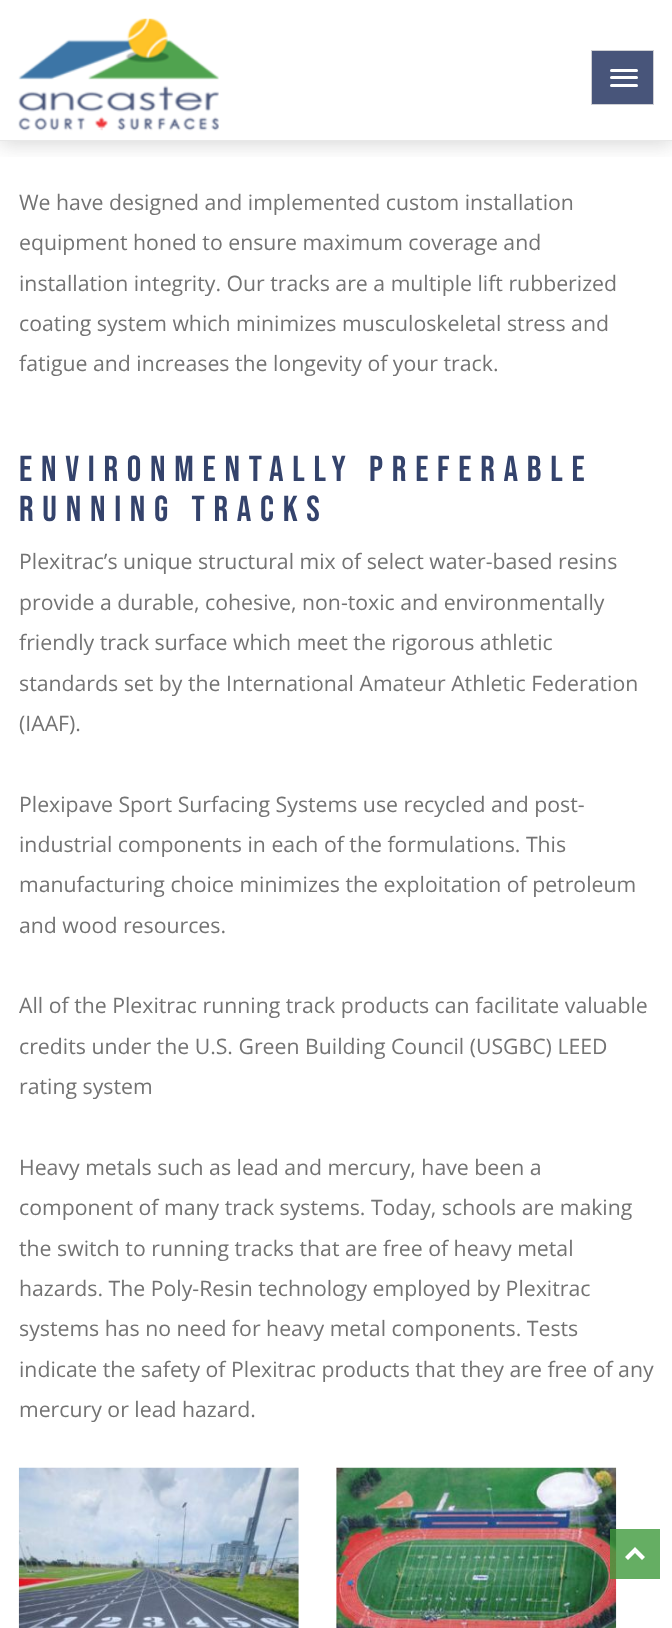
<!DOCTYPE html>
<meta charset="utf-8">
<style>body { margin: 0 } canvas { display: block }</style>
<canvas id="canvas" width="672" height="1628"></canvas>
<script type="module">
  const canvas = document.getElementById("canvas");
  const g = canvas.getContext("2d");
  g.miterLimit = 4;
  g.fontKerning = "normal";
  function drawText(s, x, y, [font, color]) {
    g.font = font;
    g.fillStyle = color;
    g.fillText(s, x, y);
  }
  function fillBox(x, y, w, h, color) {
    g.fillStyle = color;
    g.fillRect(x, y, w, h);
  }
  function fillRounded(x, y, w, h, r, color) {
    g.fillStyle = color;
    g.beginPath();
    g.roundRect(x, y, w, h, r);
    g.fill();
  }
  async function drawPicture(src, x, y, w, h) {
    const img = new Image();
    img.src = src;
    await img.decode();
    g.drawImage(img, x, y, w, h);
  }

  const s1 = ["21.25px Open Sans", "#737373"];
  const s2 = ["36.25px Bebas Neue", "#34436C"];

  fillBox(0, 0, 672, 1628, "#FFFFFF");
  g.save();
  g.beginPath();
  g.rect(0, 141, 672, 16);
  g.clip();
  g.fillStyle = "rgba(71, 71, 71, 0.2)";
  g.filter = "blur(9.5px)";
  g.beginPath();
  g.rect(0, 4, 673, 141);
  g.fill();
  g.filter = "none";
  g.restore();
  fillBox(0, 140, 672, 1, "#E8E8E8");
  await drawPicture("pic1.png", 18, 18, 201, 113);
  g.fillStyle = "rgba(52, 67, 108, 0.9)";
  g.beginPath();
  g.rect(591.5, 50.5, 62, 54);
  g.fill();
  g.strokeStyle = "#CECFD3";
  g.stroke();
  fillRounded(610, 69, 28, 3, 1.5, "#FFFFFF");
  fillRounded(610, 76, 28, 3, 1.5, "#FFFFFF");
  fillRounded(610, 84, 28, 3, 1.5, "#FFFFFF");
  drawText("We have designed and implemented custom installation", 19, 210, s1);
  drawText("equipment honed to ensure maximum coverage and", 19, 250, s1);
  drawText("installation integrity. Our tracks are a multiple lift rubberized", 19, 291, s1);
  drawText("coating system which minimizes musculoskeletal stress and", 19, 331, s1);
  drawText("fatigue and increases the longevity of your track.", 19, 371, s1);
  g.letterSpacing = "8.75px";
  drawText("Environmentally Preferable", 19, 481, s2);
  drawText("Running Tracks", 19, 521, s2);
  g.letterSpacing = "0px";
  drawText("Plexitrac’s unique structural mix of select water-based resins", 19, 569, s1);
  drawText("provide a durable, cohesive, non-toxic and environmentally", 19, 610, s1);
  drawText("friendly track surface which meet the rigorous athletic", 19, 650, s1);
  drawText("standards set by the International Amateur Athletic Federation", 19, 691, s1);
  drawText("(IAAF).", 19, 731, s1);
  drawText("Plexipave Sport Surfacing Systems use recycled and post-", 19, 812, s1);
  drawText("industrial components in each of the formulations. This", 19, 852, s1);
  drawText("manufacturing choice minimizes the exploitation of petroleum", 19, 892, s1);
  drawText("and wood resources.", 19, 933, s1);
  drawText("All of the Plexitrac running track products can facilitate valuable", 19, 1013, s1);
  drawText("credits under the U.S. Green Building Council (USGBC) LEED", 19, 1054, s1);
  drawText("rating system", 19, 1094, s1);
  drawText("Heavy metals such as lead and mercury, have been a", 19, 1175, s1);
  drawText("component of many track systems. Today, schools are making", 19, 1215, s1);
  drawText("the switch to running tracks that are free of heavy metal", 19, 1256, s1);
  drawText("hazards. The Poly-Resin technology employed by Plexitrac", 19, 1296, s1);
  drawText("systems has no need for heavy metal components. Tests", 19, 1336, s1);
  drawText("indicate the safety of Plexitrac products that they are free of any", 19, 1377, s1);
  drawText("mercury or lead hazard.", 19, 1417, s1);
  await drawPicture("pic2.png", 18, 1467, 281, 161);
  await drawPicture("pic3.png", 336, 1467, 281, 161);
  fillBox(610, 1529, 50, 50, "rgba(62, 154, 60, 0.8)");
  g.fillStyle = "#FFFFFF";
  g.beginPath();
  g.moveTo(635, 1547);
  g.lineTo(645, 1557);
  g.lineTo(642, 1560);
  g.lineTo(635, 1553);
  g.lineTo(628, 1560);
  g.lineTo(625, 1557);
  g.closePath();
  g.fill();
</script>
